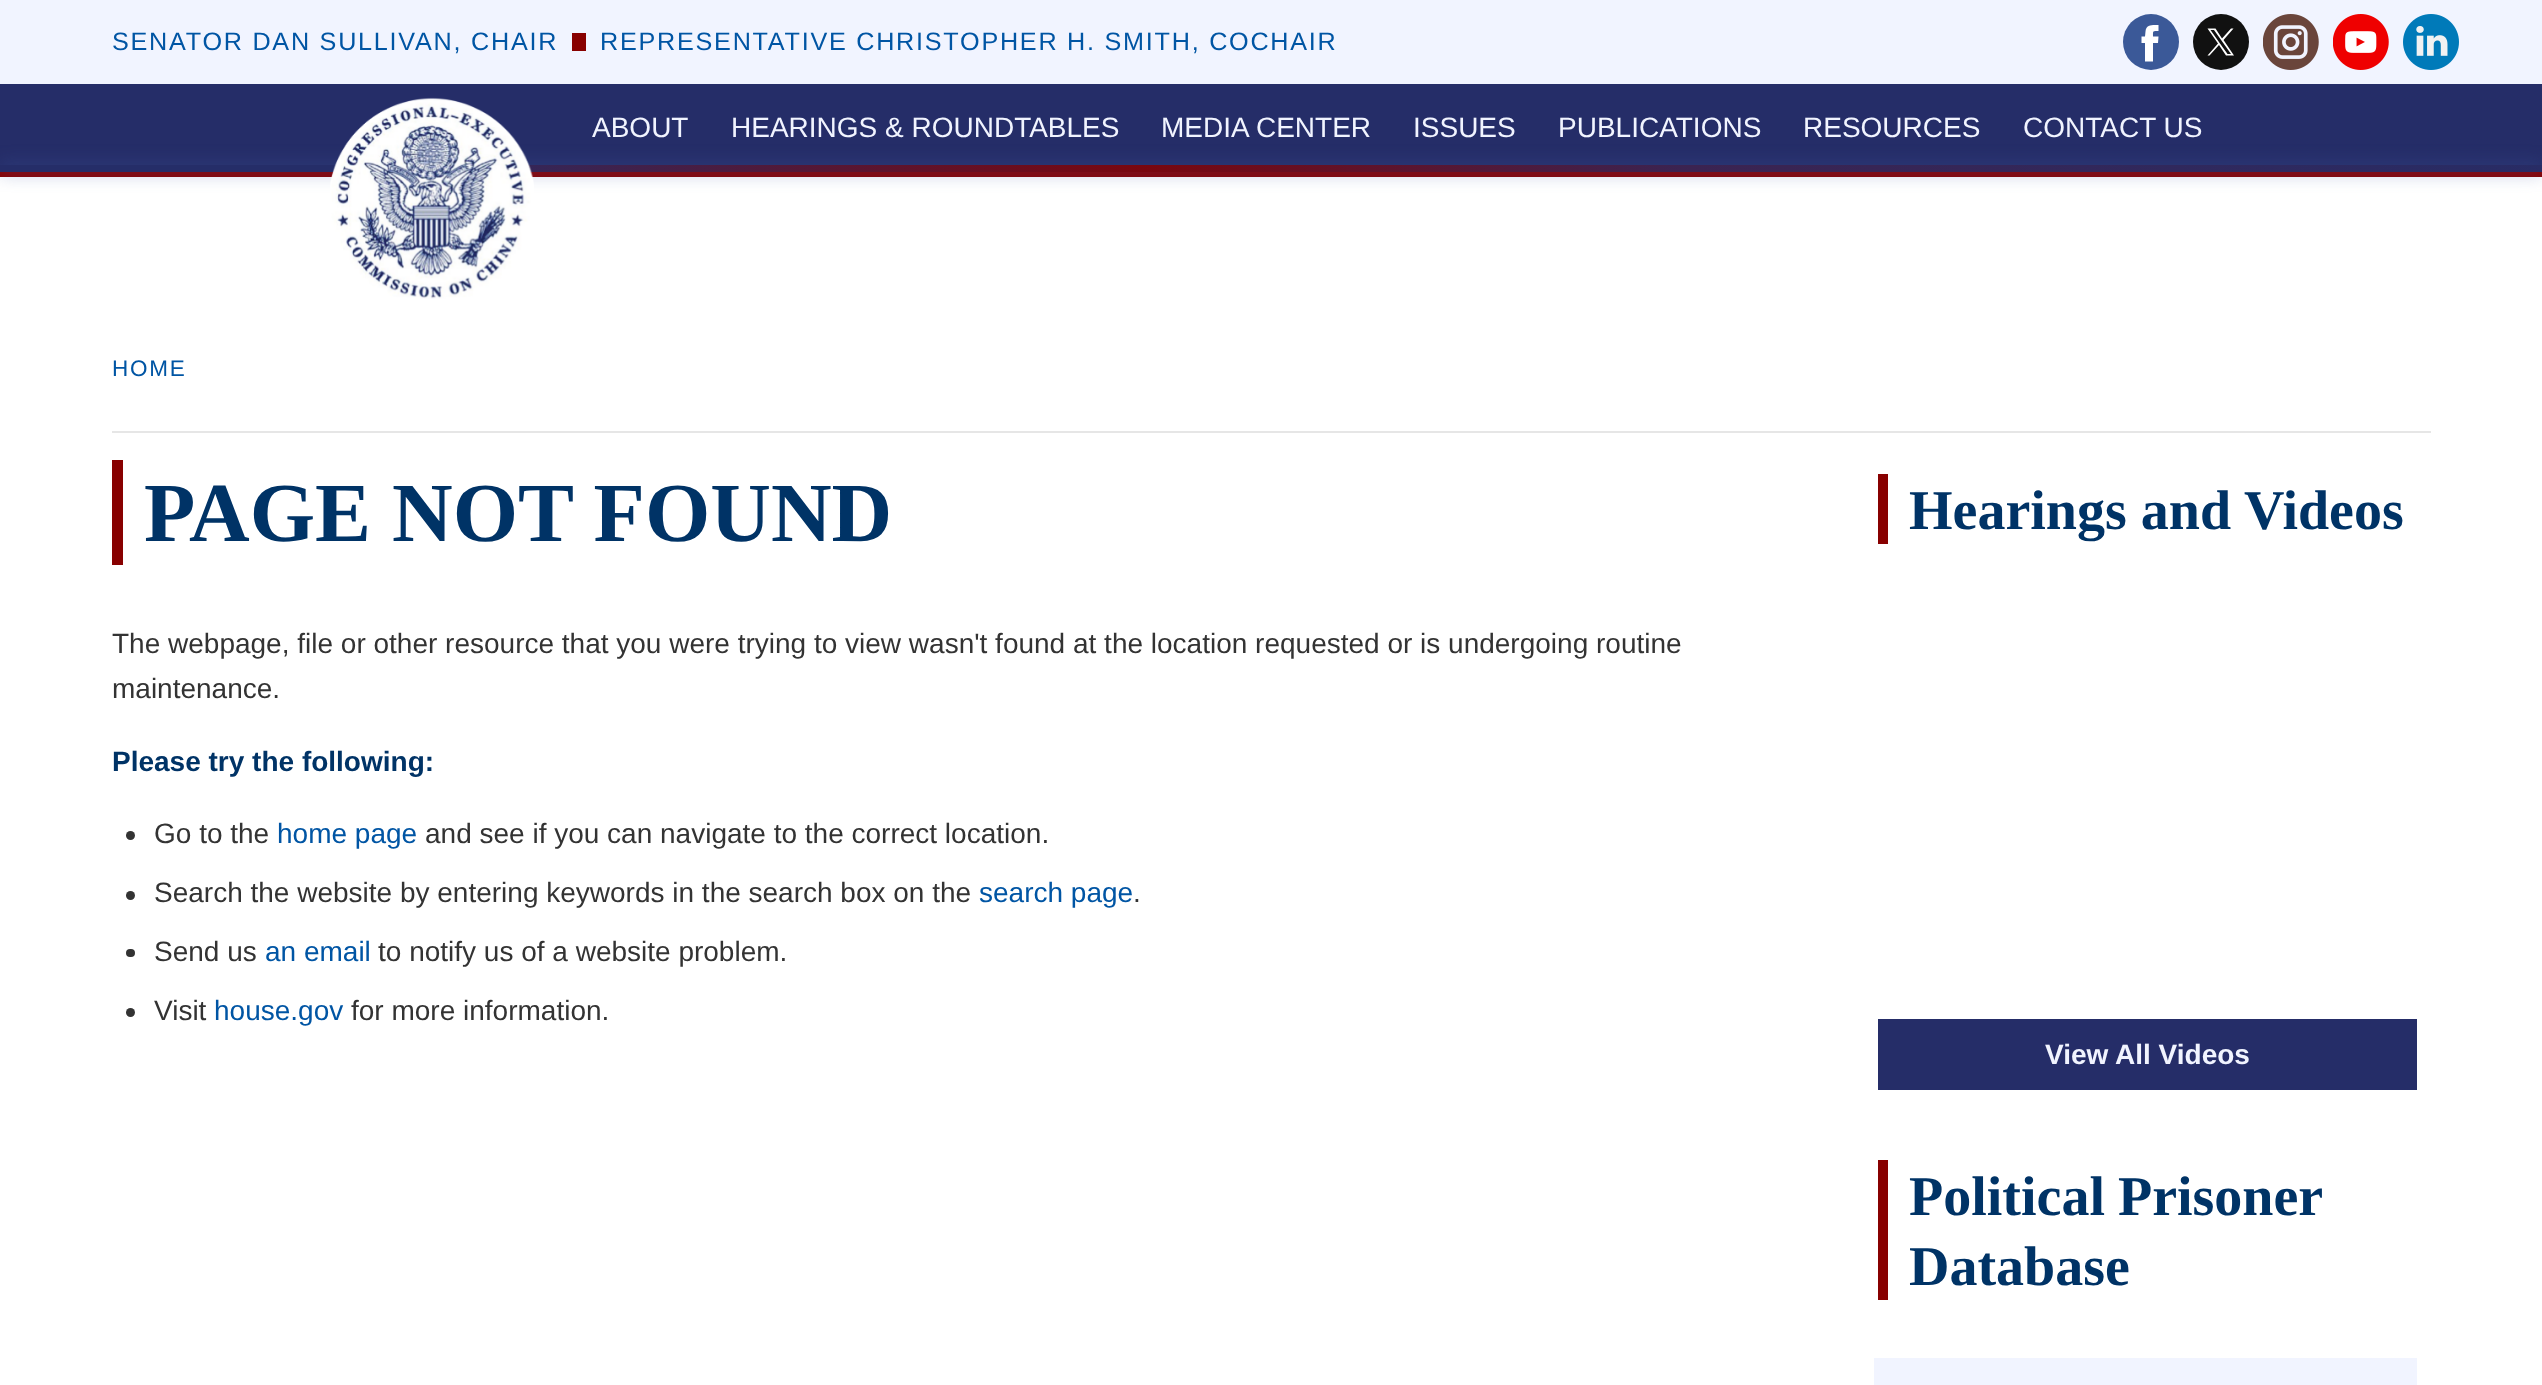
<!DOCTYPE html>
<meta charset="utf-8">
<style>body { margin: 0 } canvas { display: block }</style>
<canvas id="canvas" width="2542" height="1385"></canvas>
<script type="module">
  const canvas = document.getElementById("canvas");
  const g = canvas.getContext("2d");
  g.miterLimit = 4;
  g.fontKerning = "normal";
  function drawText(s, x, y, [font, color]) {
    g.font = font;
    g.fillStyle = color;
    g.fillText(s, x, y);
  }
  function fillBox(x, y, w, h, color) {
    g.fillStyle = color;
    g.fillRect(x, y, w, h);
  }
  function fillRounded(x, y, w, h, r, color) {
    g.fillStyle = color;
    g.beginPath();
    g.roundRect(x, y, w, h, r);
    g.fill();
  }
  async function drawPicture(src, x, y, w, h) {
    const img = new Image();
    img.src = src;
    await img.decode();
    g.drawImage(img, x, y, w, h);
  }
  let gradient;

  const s1 = ["25.2px Liberation Sans", "#0055A4"];
  const s2 = ["28px Liberation Sans", "#F1F4FF"];
  const s3 = ["22.5px Liberation Sans", "#0055A4"];
  const s4 = ["bold 84px Liberation Serif", "#003366"];
  const s5 = ["28px Liberation Sans", "#333333"];
  const s6 = ["bold 28px Liberation Sans", "#003366"];
  const s7 = ["28px Liberation Sans", "#0055A4"];
  const s8 = ["bold 56px Liberation Serif", "#003366"];
  const s9 = ["bold 28px Liberation Sans", "#F1F4FF"];

  fillBox(0, 0, 2542, 1385, "#FFFFFF");
  fillBox(0, 0, 2542, 84, "#F1F4FF");
  g.letterSpacing = "1.75px";
  drawText("SENATOR DAN SULLIVAN, CHAIR", 112, 50, s1);
  fillBox(572, 33, 14, 18, "#880000");
  drawText("REPRESENTATIVE CHRISTOPHER H. SMITH, COCHAIR", 600, 50, s1);
  g.fillStyle = "#3B5998";
  g.beginPath();
  g.arc(2151, 42, 28, 0, Math.PI * 2);
  g.fill();
  g.fillStyle = "#FFFFFF";
  g.beginPath();
  g.moveTo(2158, 43);
  g.lineTo(2153, 43);
  g.lineTo(2153, 61.5);
  g.lineTo(2145, 61.5);
  g.lineTo(2145, 43);
  g.lineTo(2141.5, 43);
  g.lineTo(2141.5, 36.5);
  g.lineTo(2145, 36.5);
  g.lineTo(2145.5, 31.5);
  g.bezierCurveTo(2146, 24, 2153, 25, 2158.5, 25);
  g.lineTo(2158.5, 31);
  g.bezierCurveTo(2152.5, 31, 2153, 30.5, 2153, 36.5);
  g.lineTo(2158.5, 36.5);
  g.closePath();
  g.fill();
  g.fillStyle = "#111111";
  g.beginPath();
  g.arc(2221, 42, 28, 0, Math.PI * 2);
  g.fill();
  g.fillStyle = "#FFFFFF";
  g.beginPath();
  g.moveTo(2223.5, 40);
  g.lineTo(2233.5, 28.5);
  g.lineTo(2231, 28.5);
  g.lineTo(2222, 38.5);
  g.lineTo(2215.5, 28.5);
  g.lineTo(2207.5, 28.5);
  g.lineTo(2218, 43.5);
  g.lineTo(2207.5, 55.5);
  g.lineTo(2209.5, 55.5);
  g.lineTo(2219, 45);
  g.lineTo(2226, 55.5);
  g.lineTo(2234, 55.5);
  g.closePath();
  g.moveTo(2220, 43.5);
  g.lineTo(2210.5, 30);
  g.lineTo(2214, 30);
  g.lineTo(2231, 54);
  g.lineTo(2227.5, 54);
  g.closePath();
  g.fill();
  await drawPicture("pic1.png", 2263, 14, 56, 56);
  await drawPicture("pic2.png", 2333, 14, 56, 56);
  await drawPicture("pic3.png", 2403, 14, 56, 56);
  fillBox(0, 172, 2542, 5, "#880000");
  fillBox(0, 84, 2542, 88, "#252D68");
  g.save();
  g.beginPath();
  g.moveTo(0, 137);
  g.lineTo(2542, 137);
  g.lineTo(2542, 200);
  g.lineTo(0, 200);
  g.closePath();
  g.moveTo(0, 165);
  g.lineTo(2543, 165);
  g.lineTo(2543, 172);
  g.lineTo(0, 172);
  g.closePath();
  g.clip("evenodd");
  g.fillStyle = "rgba(65, 88, 160, 0.54)";
  g.filter = "blur(9px)";
  g.beginPath();
  g.rect(0, 165, 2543, 7);
  g.fill();
  g.filter = "none";
  g.restore();
  gradient = g.createLinearGradient(0, 168, 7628, 168);
  gradient.addColorStop(0, "rgba(4, 5, 10, 0)");
  gradient.addColorStop(0.05, "rgba(126, 5, 10, 0)");
  gradient.addColorStop(0.15, "rgba(126, 5, 10, 0.95)");
  gradient.addColorStop(0.22, "rgba(126, 5, 10, 0.25)");
  gradient.addColorStop(0.35, "rgba(126, 5, 10, 0)");
  gradient.addColorStop(1, "rgba(4, 5, 10, 0)");
  g.fillStyle = gradient;
  g.fillRect(528, 165, 2014, 7);
  await drawPicture("pic4.png", 330, 97, 204, 202);
  g.letterSpacing = "0px";
  drawText("ABOUT", 592, 137, s2);
  drawText("HEARINGS & ROUNDTABLES", 731, 137, s2);
  drawText("MEDIA CENTER", 1161, 137, s2);
  drawText("ISSUES", 1413, 137, s2);
  drawText("PUBLICATIONS", 1558, 137, s2);
  drawText("RESOURCES", 1803, 137, s2);
  drawText("CONTACT US", 2023, 137, s2);
  g.letterSpacing = "1.75px";
  drawText("HOME", 112, 376, s3);
  fillBox(112, 431, 2319, 2, "#E6E6E6");
  fillBox(112, 460, 11, 105, "#880000");
  g.letterSpacing = "0px";
  drawText("PAGE NOT FOUND", 144, 541, s4);
  drawText("The webpage, file or other resource that you were trying to view wasn't found at the location requested or is undergoing routine", 112, 653, s5);
  drawText("maintenance.", 112, 698, s5);
  drawText("Please try the following:", 112, 771, s6);
  g.fillStyle = "#333333";
  g.beginPath();
  g.arc(130.5, 835.5, 4.5, 0, Math.PI * 2);
  g.fill();
  drawText("Go to the", 154, 843, s5);
  drawText("home page", 277, 843, s7);
  drawText("and see if you can navigate to the correct location.", 425, 843, s5);
  g.beginPath();
  g.arc(130.5, 895.5, 4.5, 0, Math.PI * 2);
  g.fill();
  drawText("Search the website by entering keywords in the search box on the", 154, 902, s5);
  drawText("search page", 979, 902, s7);
  drawText(".", 1133, 902, s5);
  fillRounded(126, 949, 9, 8, 4, "#333333");
  drawText("Send us", 154, 961, s5);
  drawText("an email", 265, 961, s7);
  drawText("to notify us of a website problem.", 378, 961, s5);
  g.beginPath();
  g.arc(130.5, 1012.5, 4.5, 0, Math.PI * 2);
  g.fill();
  drawText("Visit", 154, 1020, s5);
  drawText("house.gov", 214, 1020, s7);
  drawText("for more information.", 351, 1020, s5);
  fillBox(1878, 474, 10, 70, "#880000");
  drawText("Hearings and Videos", 1909, 529, s8);
  fillBox(1878, 1019, 539, 71, "#252D68");
  drawText("View All Videos", 2045, 1064, s9);
  fillBox(1878, 1160, 10, 140, "#880000");
  g.wordSpacing = "-1px";
  drawText("Political Prisoner", 1909, 1215, s8);
  g.wordSpacing = "0px";
  drawText("Database", 1909, 1285, s8);
  fillBox(1874, 1358, 543, 27, "#F1F4FF");
</script>
